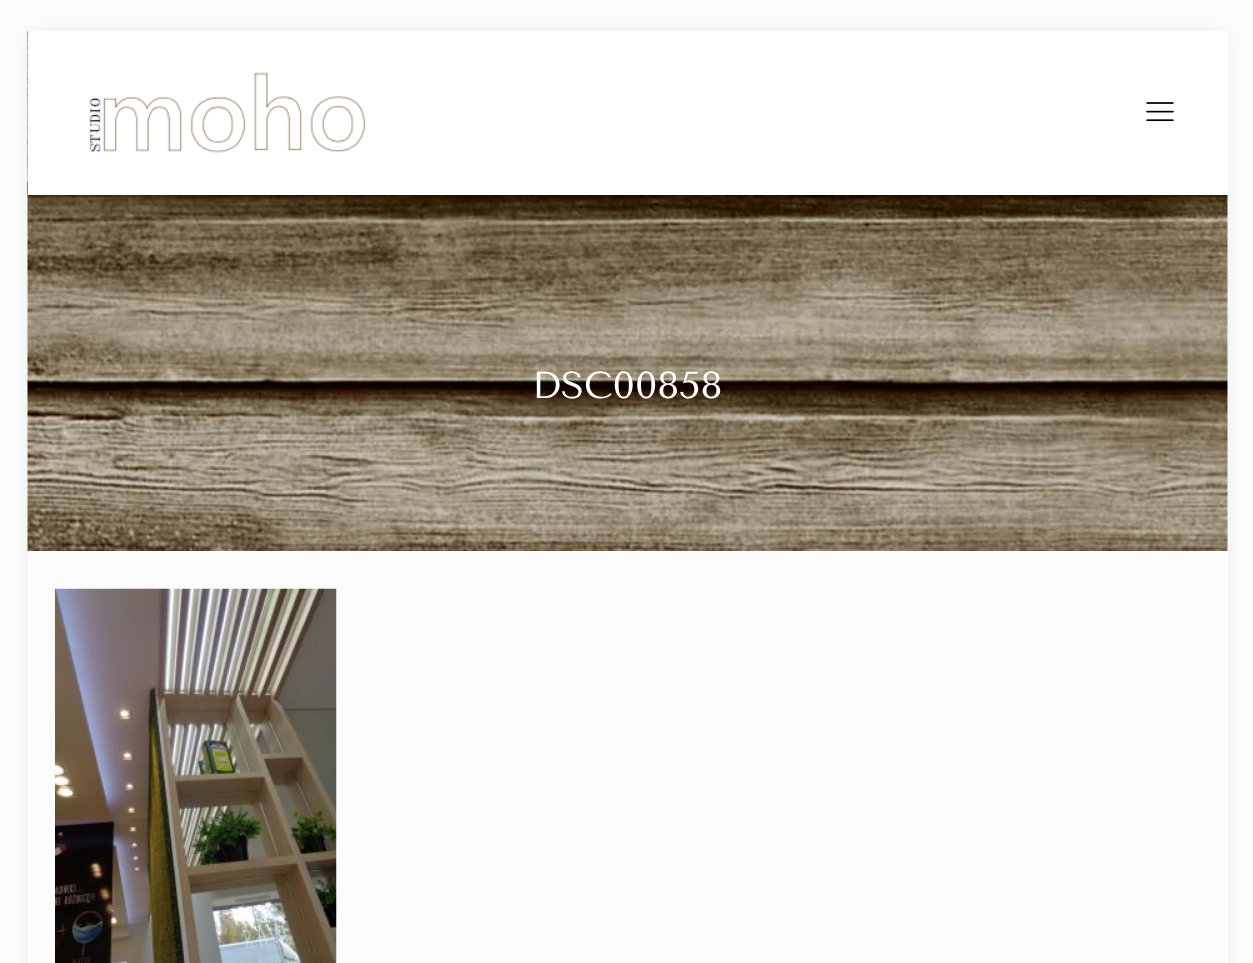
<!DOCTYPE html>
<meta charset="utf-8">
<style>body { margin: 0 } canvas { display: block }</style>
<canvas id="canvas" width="1253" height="963"></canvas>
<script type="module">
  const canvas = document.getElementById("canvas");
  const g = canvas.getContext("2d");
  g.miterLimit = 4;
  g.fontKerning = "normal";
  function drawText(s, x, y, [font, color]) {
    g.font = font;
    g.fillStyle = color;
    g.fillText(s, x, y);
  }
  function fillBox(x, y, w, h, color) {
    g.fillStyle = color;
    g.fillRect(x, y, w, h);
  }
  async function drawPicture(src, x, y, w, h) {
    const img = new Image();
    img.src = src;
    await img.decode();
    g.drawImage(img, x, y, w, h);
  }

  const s1 = ["37.5px Tenor Sans", "#FFFFFF"];

  fillBox(0, 0, 1253, 963, "#FCFCFC");
  g.fillStyle = "rgba(0, 0, 0, 0.06)";
  g.filter = "blur(9.5px)";
  g.beginPath();
  g.rect(28, 31, 1200, 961);
  g.fill();
  g.filter = "none";
  fillBox(1227, 195, 1, 356, "#FFFFFF");
  await drawPicture("pic1.png", 27, 31, 1201, 521);
  fillBox(28, 31, 1200, 164, "#FFFFFF");
  await drawPicture("pic2.png", 88, 72, 278, 81);
  await drawPicture("pic3.png", 1146, 102, 28, 20);
  drawText("DSC00858", 532, 398, s1);
  fillBox(28, 551, 1200, 412, "#FCFCFC");
  await drawPicture("pic4.png", 55, 588, 282, 375);
</script>
